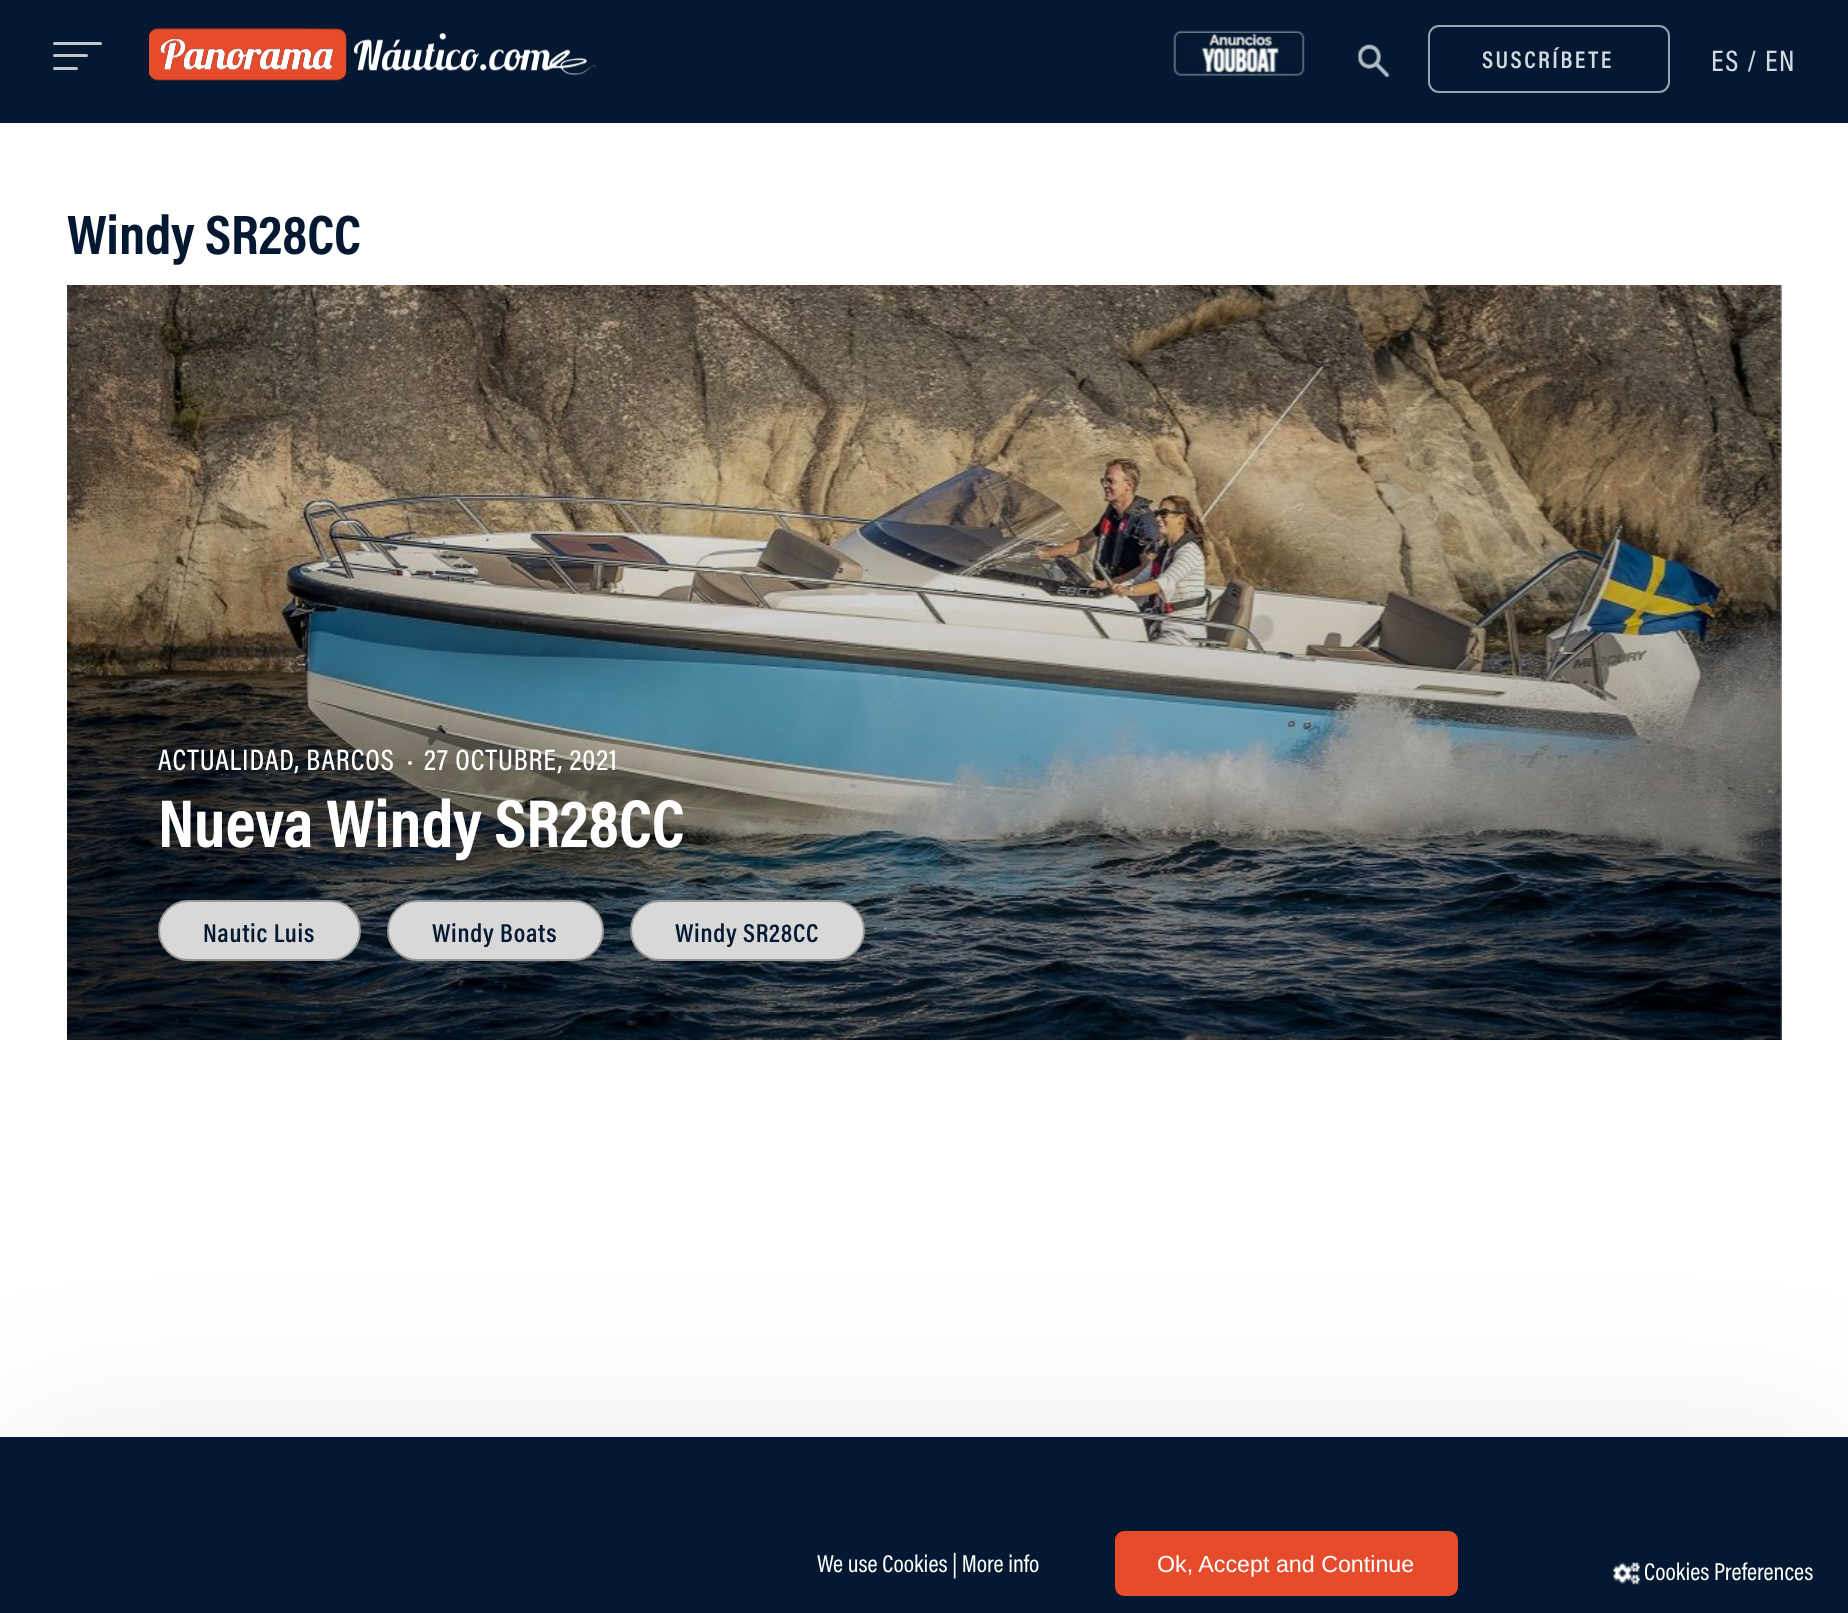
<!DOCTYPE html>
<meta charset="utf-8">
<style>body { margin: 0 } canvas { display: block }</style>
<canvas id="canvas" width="1848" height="1613"></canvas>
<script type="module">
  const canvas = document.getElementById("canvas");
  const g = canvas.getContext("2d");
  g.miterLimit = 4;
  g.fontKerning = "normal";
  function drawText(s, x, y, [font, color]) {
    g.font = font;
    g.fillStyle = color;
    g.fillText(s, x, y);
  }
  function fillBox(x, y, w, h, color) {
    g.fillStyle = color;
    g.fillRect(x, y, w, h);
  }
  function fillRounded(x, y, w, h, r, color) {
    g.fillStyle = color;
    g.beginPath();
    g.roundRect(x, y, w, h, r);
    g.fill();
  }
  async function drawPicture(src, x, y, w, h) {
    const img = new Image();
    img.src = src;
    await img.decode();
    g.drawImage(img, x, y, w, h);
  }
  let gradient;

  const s1 = ["600 24.5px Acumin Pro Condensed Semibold", "#D1D9E2"];
  const s2 = ["500 29.75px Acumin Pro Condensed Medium", "#D1D9E2"];
  const s3 = ["bold 56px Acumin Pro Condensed", "#041931"];
  const s4 = ["500 29.75px Acumin Pro Condensed Medium", "#FFFFFF"];
  const s5 = ["bold 68.25px Acumin Pro Condensed", "#FFFFFF"];
  const s6 = ["600 26.25px Acumin Pro Condensed Semibold", "#041931"];
  const s7 = ["24.5px Acumin Pro Condensed", "#FFFFFF"];
  const s8 = ["23.25px Liberation Sans", "#FFFFFF"];

  fillBox(0, 0, 1848, 1613, "#FFFFFF");
  fillBox(0, 0, 1848, 123, "#041931");
  fillRounded(53, 42, 49, 3, 1.5, "#C0C6CC");
  fillRounded(53, 54, 35, 3, 1.5, "#C0C6CC");
  fillRounded(53, 67, 25, 3, 1.5, "#C0C6CC");
  await drawPicture("pic1.png", 149, 28, 448, 53);
  await drawPicture("pic2.png", 1173, 30, 132, 46);
  await drawPicture("pic3.png", 1357, 44, 33, 33);
  g.beginPath();
  g.roundRect(1429, 26, 240, 66, 10);
  g.strokeStyle = "#96A4B4";
  g.lineWidth = 2;
  g.stroke();
  g.letterSpacing = "2.5px";
  drawText("SUSCRÍBETE", 1482, 68, s1);
  g.letterSpacing = "1.5px";
  drawText("ES / EN", 1711, 71, s2);
  g.letterSpacing = "0px";
  drawText("Windy SR28CC", 67, 254, s3);
  fillBox(1780, 285, 2, 755, "#ECECEC");
  await drawPicture("pic4.png", 67, 285, 1715, 755);
  gradient = g.createLinearGradient(924, 285, 924, 1040);
  gradient.addColorStop(0, "rgba(0, 0, 0, 0)");
  gradient.addColorStop(1, "rgba(0, 0, 0, 0.41)");
  gradient.addColorStop(1, "rgba(0, 0, 0, 0.14)");
  g.fillStyle = gradient;
  g.fillRect(67, 325, 1715, 715);
  g.letterSpacing = "0.9px";
  drawText("ACTUALIDAD", 158, 770, s4);
  drawText(", BARCOS", 294, 770, s4);
  g.beginPath();
  g.arc(410, 763, 2, 0, Math.PI * 2);
  g.fill();
  drawText("27 OCTUBRE, 2021", 424, 770, s4);
  g.letterSpacing = "0px";
  drawText("Nueva Windy SR28CC", 158, 847, s5);
  g.fillStyle = "#D8D8D8";
  g.beginPath();
  g.roundRect(159, 901, 201, 59, 29.5);
  g.fill();
  g.strokeStyle = "#979797";
  g.stroke();
  g.letterSpacing = "0.75px";
  drawText("Nautic Luis", 203, 942, s6);
  g.fillStyle = "#D8D8D8";
  g.beginPath();
  g.roundRect(388, 901, 215, 59, 29.5);
  g.fill();
  g.stroke();
  drawText("Windy Boats", 432, 942, s6);
  g.fillStyle = "#D8D8D8";
  g.beginPath();
  g.roundRect(631, 901, 233, 59, 29.5);
  g.fill();
  g.stroke();
  drawText("Windy SR28CC", 675, 942, s6);
  g.fillStyle = "rgba(0, 0, 0, 0.08)";
  g.filter = "blur(87.5px)";
  g.beginPath();
  g.rect(0, 1437, 1848, 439);
  g.fill();
  g.filter = "none";
  fillBox(0, 1437, 1848, 176, "#041931");
  g.letterSpacing = "0px";
  drawText("We use Cookies | More info", 817, 1572, s7);
  fillRounded(1115, 1531, 343, 65, 9, "#E64B2C");
  drawText("Ok, Accept and Continue", 1157, 1572, s8);
  await drawPicture("pic5.png", 1613, 1562, 27, 23);
  drawText("Cookies Preferences", 1644, 1580, s7);
</script>
